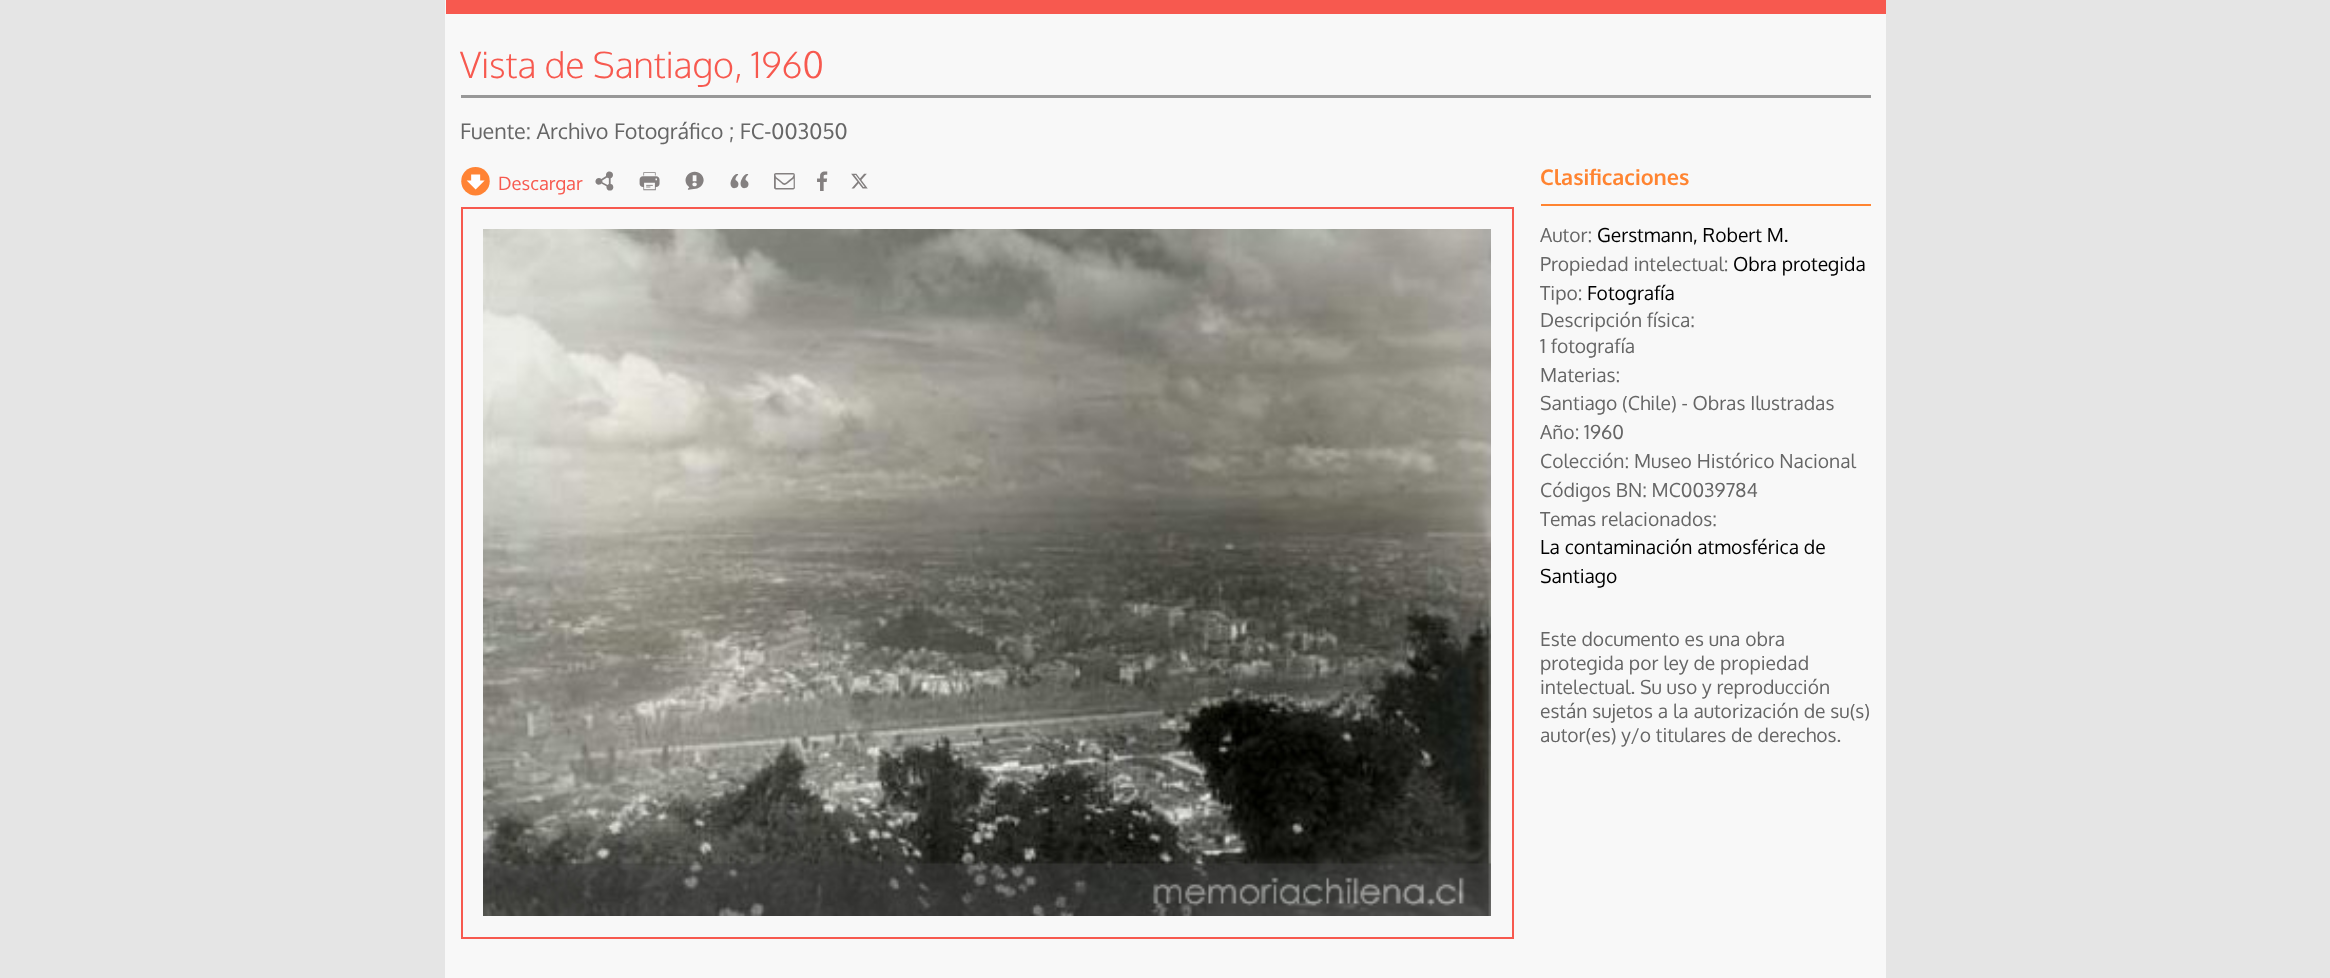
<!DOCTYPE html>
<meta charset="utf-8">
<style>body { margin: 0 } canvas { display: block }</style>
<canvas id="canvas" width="2330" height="978"></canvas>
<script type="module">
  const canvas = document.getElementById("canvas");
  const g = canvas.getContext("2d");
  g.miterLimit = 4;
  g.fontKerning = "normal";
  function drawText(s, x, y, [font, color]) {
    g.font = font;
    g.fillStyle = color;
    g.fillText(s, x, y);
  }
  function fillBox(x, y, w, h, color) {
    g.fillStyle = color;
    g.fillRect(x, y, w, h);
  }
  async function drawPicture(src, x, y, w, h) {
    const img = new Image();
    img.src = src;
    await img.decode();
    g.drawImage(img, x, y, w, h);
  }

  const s1 = ["300 36px Oxygen", "#F7594F"];
  const s2 = ["21.6px Oxygen", "#666666"];
  const s3 = ["18.5px Oxygen", "#F7594F"];
  const s4 = ["bold 21.6px Oxygen", "#FF8431"];
  const s5 = ["19.25px Oxygen", "#666666"];
  const s6 = ["19.25px Oxygen", "#000000"];

  fillBox(0, 0, 2330, 978, "#E5E5E5");
  fillBox(445, 0, 1441, 978, "#F8F8F8");
  fillBox(446, 0, 1440, 14, "#F7594F");
  fillBox(461, 95, 1410, 3, "#989898");
  drawText("Vista de Santiago, 1960", 460, 78, s1);
  drawText("Fuente: Archivo Fotográfico ; FC-003050", 460, 139, s2);
  await drawPicture("pic1.png", 461, 167, 29, 29);
  drawText("Descargar", 498, 190, s3);
  await drawPicture("pic2.png", 595, 171, 19, 20);
  await drawPicture("pic3.png", 639, 172, 21, 19);
  await drawPicture("pic4.png", 685, 171, 19, 19);
  await drawPicture("pic5.png", 730, 174, 19, 15);
  await drawPicture("pic6.png", 774, 173, 21, 17);
  await drawPicture("pic7.png", 817, 171, 11, 20);
  await drawPicture("pic8.png", 851, 173, 17, 16);
  g.strokeStyle = "#F7594F";
  g.lineWidth = 2;
  g.strokeRect(462, 208, 1051, 730);
  await drawPicture("pic9.png", 483, 229, 1008, 687);
  fillBox(1541, 204, 330, 2, "#FF8431");
  drawText("Clasificaciones", 1540, 185, s4);
  drawText("Autor:", 1540, 242, s5);
  drawText("Gerstmann, Robert M.", 1597, 242, s6);
  drawText("Propiedad intelectual:", 1540, 271, s5);
  drawText("Obra protegida", 1733, 271, s6);
  drawText("Tipo:", 1540, 300, s5);
  drawText("Fotografía", 1587, 300, s6);
  drawText("Descripción física:", 1540, 327, s5);
  drawText("1 fotografía", 1540, 353, s5);
  drawText("Materias:", 1540, 382, s5);
  drawText("Santiago (Chile) - Obras Ilustradas", 1540, 410, s5);
  drawText("Año: 1960", 1540, 439, s5);
  drawText("Colección: Museo Histórico Nacional", 1540, 468, s5);
  drawText("Códigos BN: MC0039784", 1540, 497, s5);
  drawText("Temas relacionados:", 1540, 526, s5);
  drawText("La contaminación atmosférica de", 1540, 554, s6);
  drawText("Santiago", 1540, 583, s6);
  drawText("Este documento es una obra", 1540, 646, s5);
  drawText("protegida por ley de propiedad", 1540, 670, s5);
  drawText("intelectual. Su uso y reproducción", 1540, 694, s5);
  drawText("están sujetos a la autorización de su(s)", 1540, 718, s5);
  drawText("autor(es) y/o titulares de derechos.", 1540, 742, s5);
</script>
